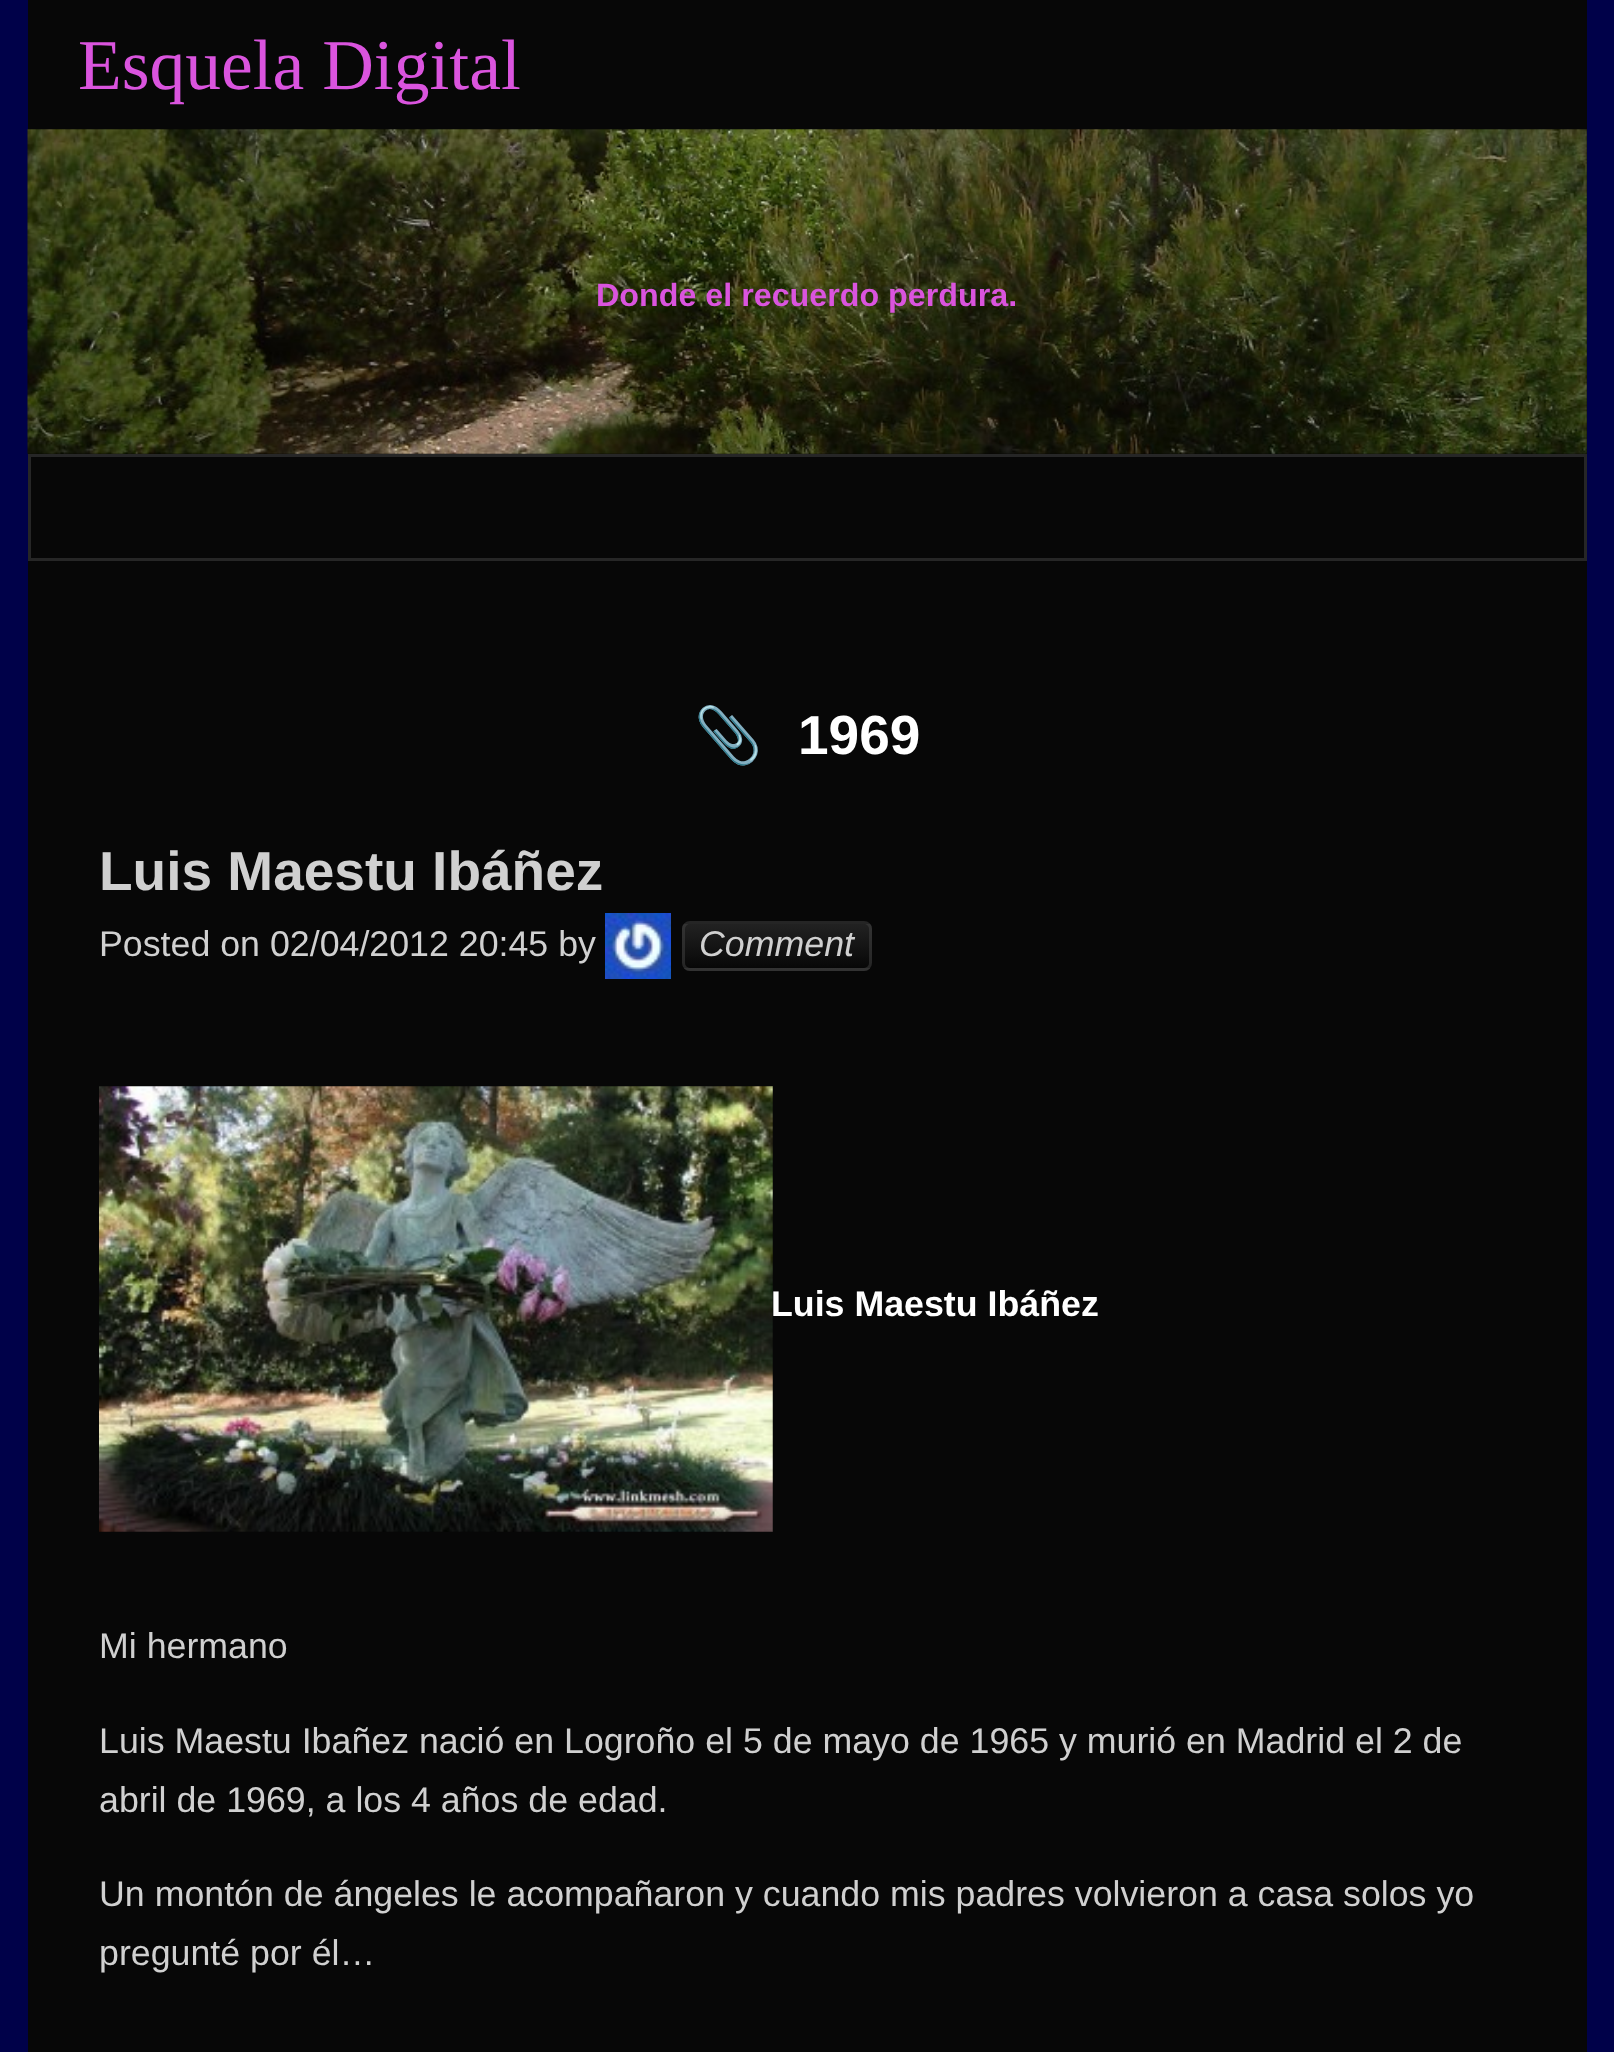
<!DOCTYPE html>
<meta charset="utf-8">
<style>body { margin: 0 } canvas { display: block }</style>
<canvas id="canvas" width="1614" height="2052"></canvas>
<script type="module">
  const canvas = document.getElementById("canvas");
  const g = canvas.getContext("2d");
  g.miterLimit = 4;
  g.fontKerning = "none";
  function drawText(s, x, y, [font, color]) {
    g.font = font;
    g.fillStyle = color;
    g.fillText(s, x, y);
  }
  function fillBox(x, y, w, h, color) {
    g.fillStyle = color;
    g.fillRect(x, y, w, h);
  }
  async function drawPicture(src, x, y, w, h) {
    const img = new Image();
    img.src = src;
    await img.decode();
    g.drawImage(img, x, y, w, h);
  }
  let gradient;

  const s1 = ["71.5px Liberation Serif", "#DA54DE"];
  const s2 = ["bold 32.25px Liberation Sans", "#DA54DE"];
  const s3 = ["bold 55px Noto Color Emoji", "#FFFFFF"];
  const s4 = ["bold 55px Liberation Sans", "#FFFFFF"];
  const s5 = ["bold 55px Liberation Sans", "#D0D0D0"];
  const s6 = ["35.75px Liberation Sans", "#D0D0D0"];
  const s7 = ["italic 35.75px Liberation Sans", "#D0D0D0"];
  const s8 = ["bold 35.75px Liberation Sans", "#FFFFFF"];

  fillBox(0, 0, 1614, 2052, "#000149");
  fillBox(28, 0, 1559, 2052, "#070707");
  drawText("Esquela Digital", 78, 89, s1);
  await drawPicture("pic1.png", 27, 129, 1560, 325);
  drawText("Donde el recuerdo perdura.", 596, 306, s2);
  g.strokeStyle = "#262626";
  g.lineWidth = 3;
  g.strokeRect(29.5, 455.5, 1556, 104);
  drawText("📎", 694, 754, s3);
  drawText("1969", 798, 754, s4);
  drawText("Luis Maestu Ibáñez", 99, 890, s5);
  drawText("Posted on 02/04/2012 20:45 by", 99, 956, s6);
  await drawPicture("pic2.png", 605, 913, 66, 66);
  g.save();
  g.beginPath();
  g.roundRect(682, 921, 190, 50, 8);
  g.clip();
  gradient = g.createLinearGradient(685, 924, 685, 968);
  gradient.addColorStop(0, "#222222");
  gradient.addColorStop(1, "#070707");
  g.fillStyle = gradient;
  g.fillRect(682, 924, 190, 44);
  gradient = g.createLinearGradient(685, 968, 685, 1012);
  gradient.addColorStop(0, "#222222");
  gradient.addColorStop(1, "#070707");
  g.fillStyle = gradient;
  g.fillRect(682, 968, 190, 3);
  g.restore();
  g.beginPath();
  g.roundRect(683.5, 922.5, 187, 47, 6.5);
  g.strokeStyle = "rgba(68, 68, 68, 0.5)";
  g.stroke();
  drawText("Comment", 699, 956, s7);
  await drawPicture("pic3.png", 99, 1086, 674, 446);
  drawText("Luis Maestu Ibáñez", 771, 1316, s8);
  drawText("Mi hermano", 99, 1658, s6);
  drawText("Luis Maestu Ibañez nació en Logroño el 5 de mayo de 1965 y murió en Madrid el 2 de", 99, 1753, s6);
  drawText("abril de 1969, a los 4 años de edad.", 99, 1812, s6);
  drawText("Un montón de ángeles le acompañaron y cuando mis padres volvieron a casa solos yo", 99, 1906, s6);
  drawText("pregunté por él…", 99, 1965, s6);
</script>
